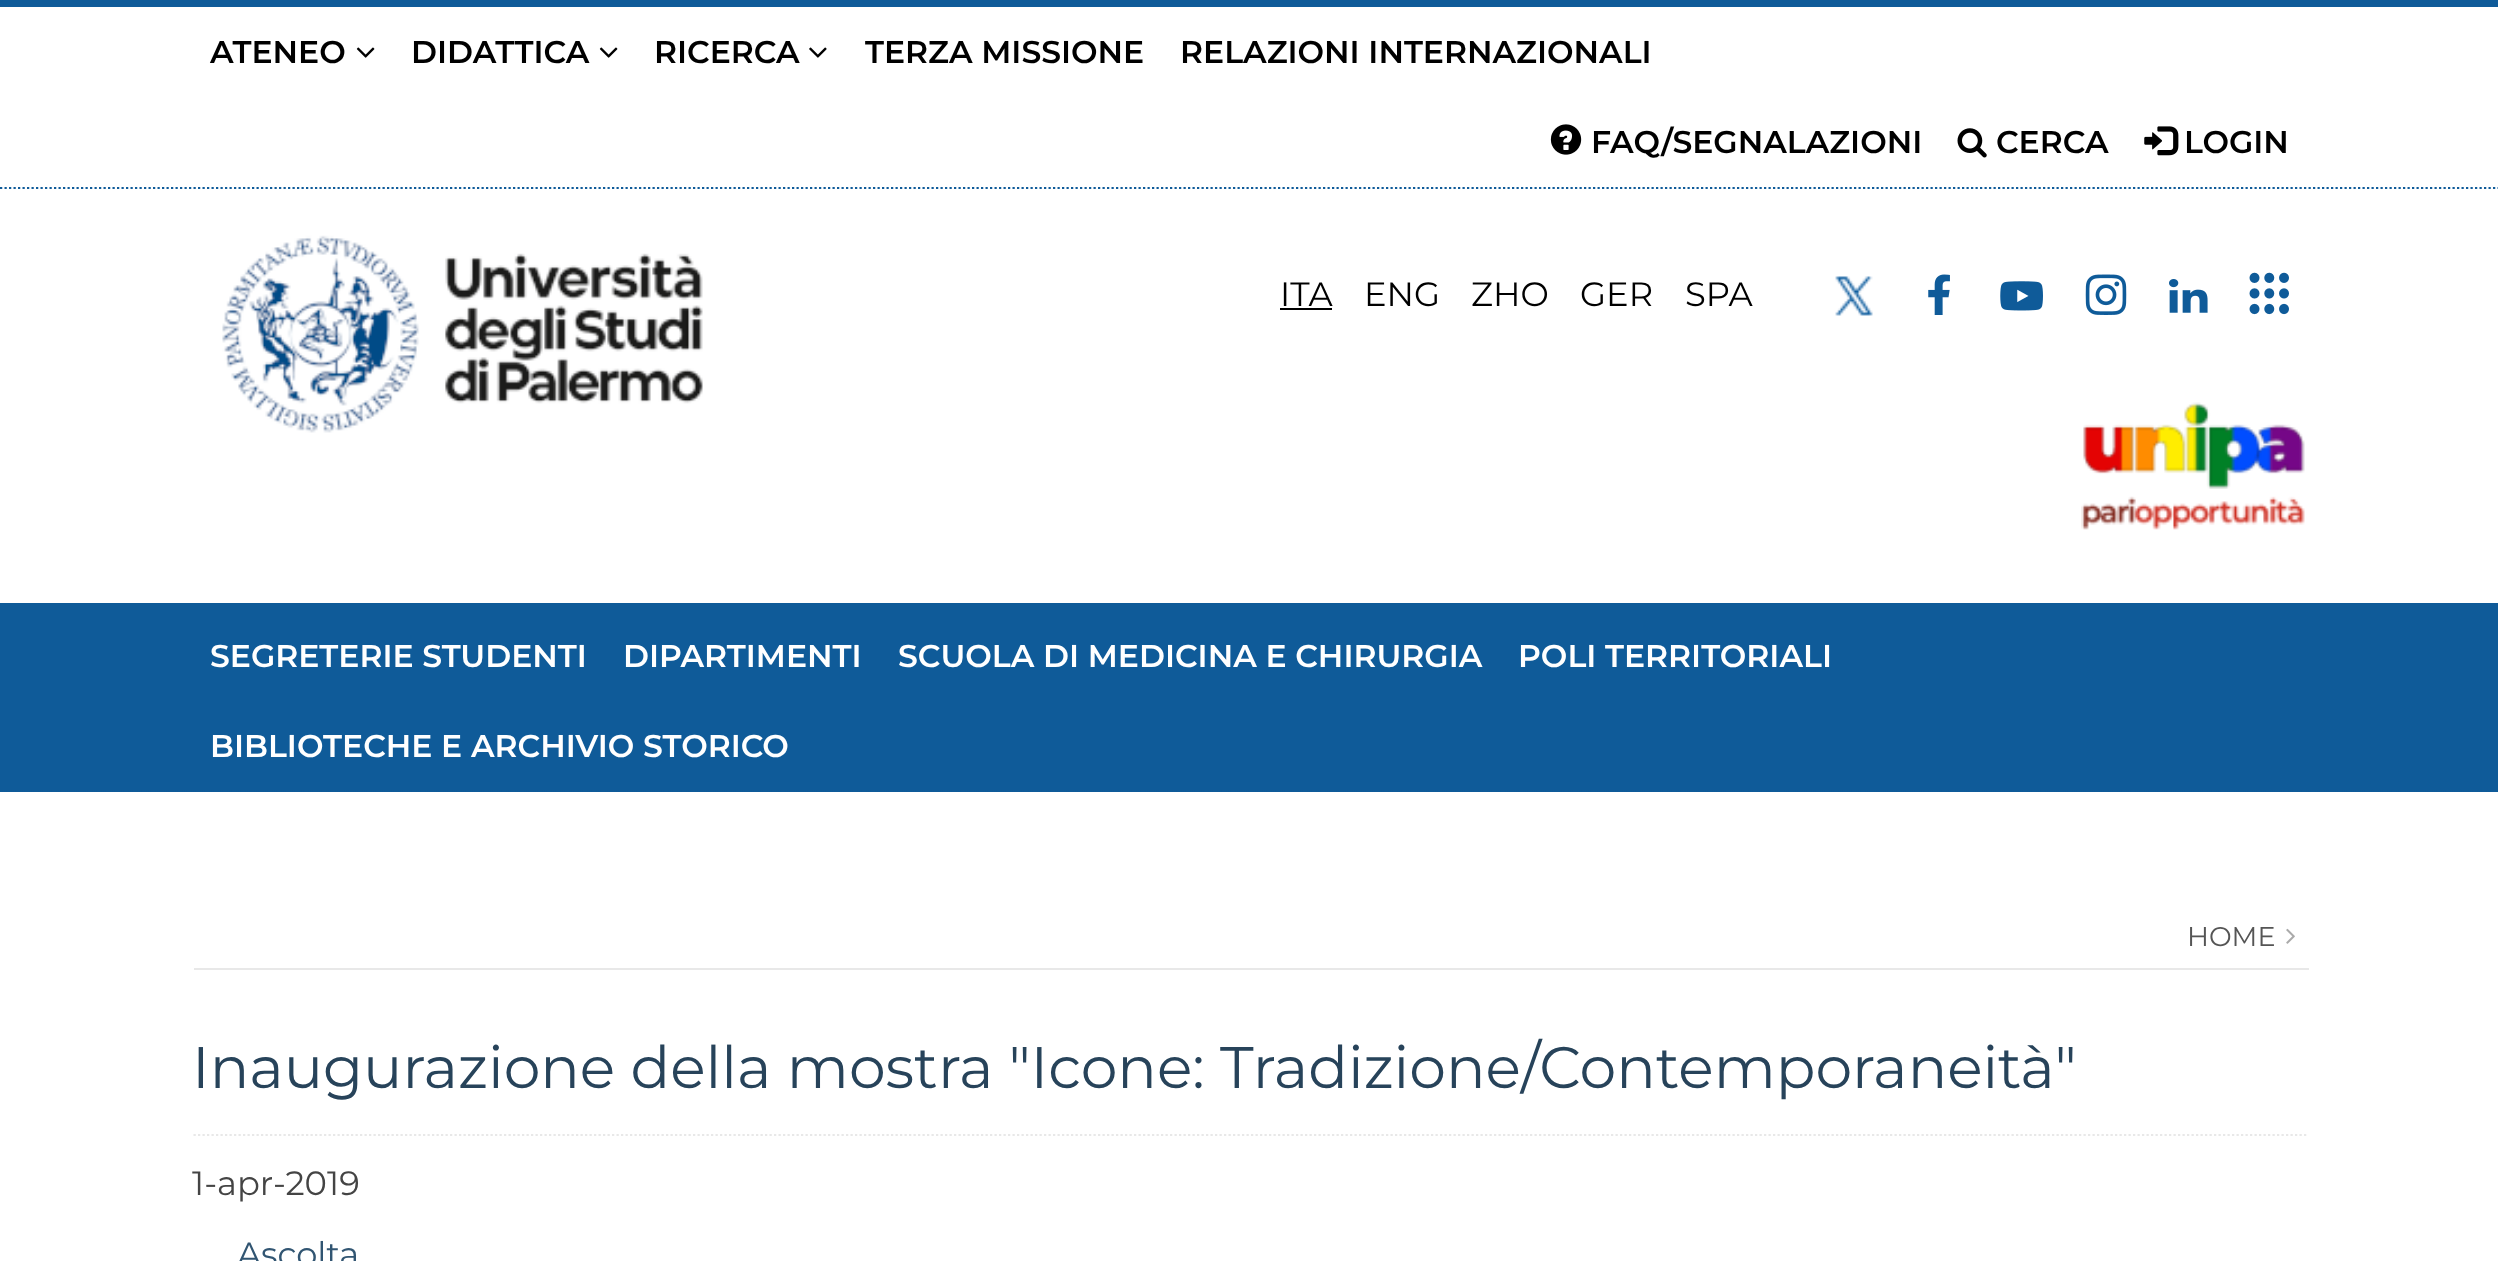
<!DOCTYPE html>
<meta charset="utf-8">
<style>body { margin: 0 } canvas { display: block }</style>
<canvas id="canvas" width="2498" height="1261"></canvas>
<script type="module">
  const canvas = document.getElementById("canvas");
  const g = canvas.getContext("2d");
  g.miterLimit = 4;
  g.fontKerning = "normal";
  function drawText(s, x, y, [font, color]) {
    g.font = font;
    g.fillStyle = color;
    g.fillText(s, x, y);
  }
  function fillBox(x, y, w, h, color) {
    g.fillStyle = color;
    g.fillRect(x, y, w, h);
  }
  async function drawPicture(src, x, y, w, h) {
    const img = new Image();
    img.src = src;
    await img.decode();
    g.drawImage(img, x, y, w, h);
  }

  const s1 = ["600 31.5px Montserrat", "#000000"];
  const s2 = ["33.75px Montserrat", "#000000"];
  const s3 = ["600 31.5px Montserrat", "#FFFFFF"];
  const s4 = ["27px Montserrat", "#555555"];
  const s5 = ["58.5px Montserrat", "#27435A"];
  const s6 = ["33.75px Montserrat", "#444444"];
  const s7 = ["33.75px Montserrat", "#315572"];

  fillBox(0, 0, 2498, 1261, "#FFFFFF");
  fillBox(0, 0, 2498, 7, "#0F5B99");
  g.beginPath();
  g.moveTo(0, 188);
  g.lineTo(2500, 188);
  g.strokeStyle = "#0F5B99";
  g.lineWidth = 2.2;
  g.setLineDash([2.25, 2.25]);
  g.stroke();
  drawText("ATENEO", 210, 63, s1);
  await drawPicture("pic1.png", 356, 47, 19, 11);
  drawText("DIDATTICA", 411, 63, s1);
  await drawPicture("pic1.png", 599, 47, 19, 11);
  drawText("RICERCA", 654, 63, s1);
  await drawPicture("pic2.png", 809, 47, 18, 11);
  drawText("TERZA MISSIONE", 865, 63, s1);
  drawText("RELAZIONI INTERNAZIONALI", 1180, 63, s1);
  fillBox(1532, 186, 777, 1, "#FFFFFF");
  await drawPicture("pic3.png", 1550, 124, 32, 31);
  drawText("FAQ/SEGNALAZIONI", 1591, 153, s1);
  await drawPicture("pic4.png", 1957, 128, 30, 30);
  drawText("CERCA", 1996, 153, s1);
  await drawPicture("pic5.png", 2144, 126, 35, 30);
  drawText("LOGIN", 2184, 153, s1);
  await drawPicture("pic6.png", 222, 235, 481, 198);
  drawText("ITA", 1280, 306, s2);
  fillBox(1280, 308, 52, 2, "#000000");
  drawText("ENG", 1364, 306, s2);
  drawText("ZHO", 1471, 306, s2);
  drawText("GER", 1580, 306, s2);
  drawText("SPA", 1685, 306, s2);
  await drawPicture("pic7.png", 1835, 276, 38, 40);
  await drawPicture("pic8.png", 1928, 274, 22, 41);
  await drawPicture("pic9.png", 2000, 281, 43, 30);
  await drawPicture("pic10.png", 2085, 274, 42, 41);
  await drawPicture("pic11.png", 2169, 279, 39, 34);
  await drawPicture("pic12.png", 2249, 272, 40, 43);
  await drawPicture("pic13.png", 2081, 402, 224, 128);
  fillBox(0, 603, 2498, 189, "#0F5B99");
  g.beginPath();
  g.moveTo(0, 791);
  g.lineTo(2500, 791);
  g.stroke();
  drawText("SEGRETERIE STUDENTI", 210, 667, s3);
  drawText("DIPARTIMENTI", 623, 667, s3);
  drawText("SCUOLA DI MEDICINA E CHIRURGIA", 898, 667, s3);
  drawText("POLI TERRITORIALI", 1518, 667, s3);
  drawText("BIBLIOTECHE E ARCHIVIO STORICO", 210, 757, s3);
  fillBox(194, 968, 2115, 2, "#E8E8E8");
  drawText("HOME", 2187, 946, s4);
  await drawPicture("pic14.png", 2286, 928, 9, 16);
  g.beginPath();
  g.moveTo(193.5, 1135);
  g.lineTo(2308.5, 1135);
  g.strokeStyle = "#E8E8E8";
  g.stroke();
  drawText("Inaugurazione della mostra \"Icone: Tradizione/Contemporaneità\"", 192, 1088, s5);
  drawText("1-apr-2019", 192, 1195, s6);
  drawText("Ascolta", 237, 1266, s7);
</script>
